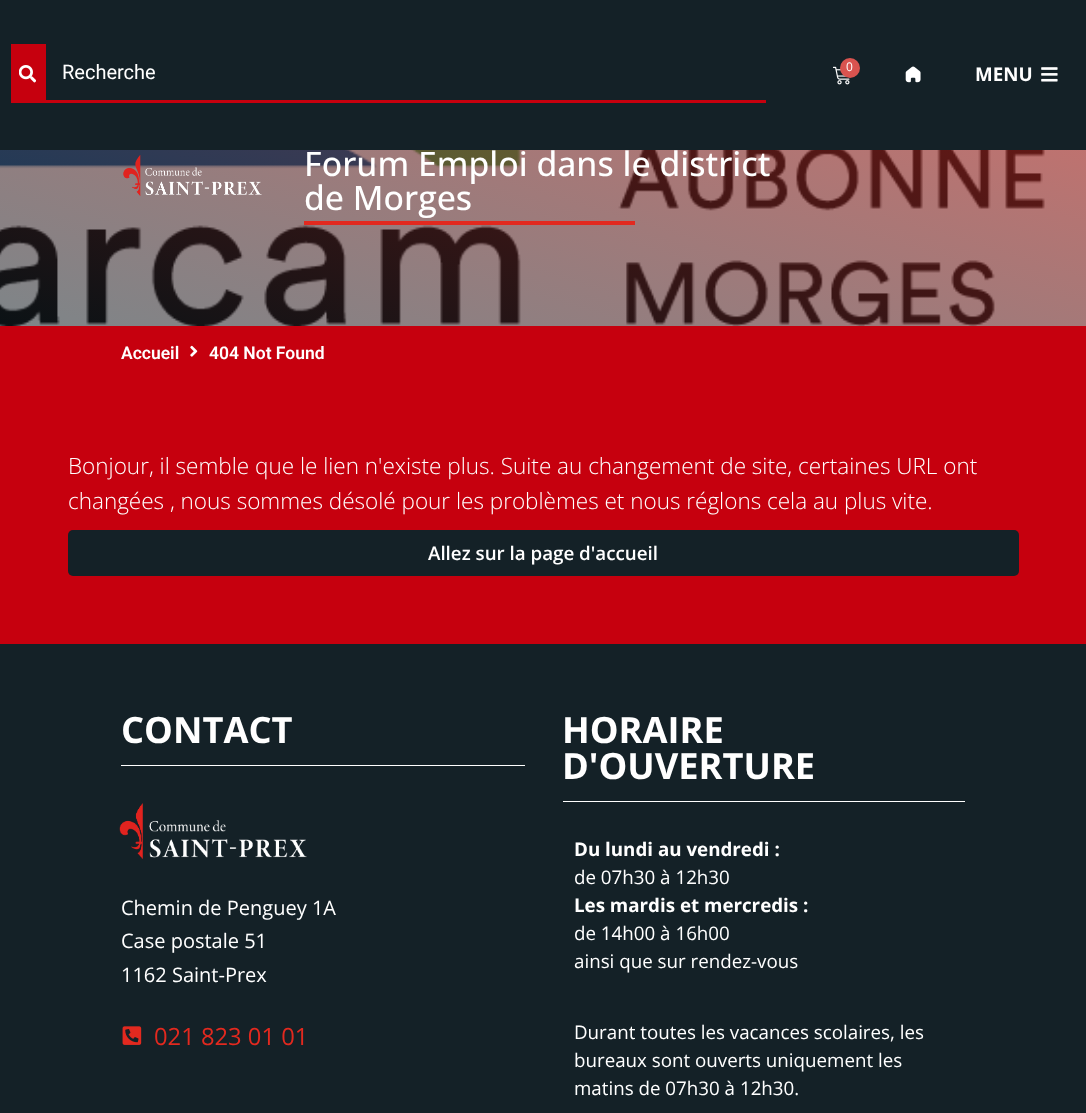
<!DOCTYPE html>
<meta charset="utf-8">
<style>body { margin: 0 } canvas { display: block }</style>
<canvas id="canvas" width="1086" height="1113"></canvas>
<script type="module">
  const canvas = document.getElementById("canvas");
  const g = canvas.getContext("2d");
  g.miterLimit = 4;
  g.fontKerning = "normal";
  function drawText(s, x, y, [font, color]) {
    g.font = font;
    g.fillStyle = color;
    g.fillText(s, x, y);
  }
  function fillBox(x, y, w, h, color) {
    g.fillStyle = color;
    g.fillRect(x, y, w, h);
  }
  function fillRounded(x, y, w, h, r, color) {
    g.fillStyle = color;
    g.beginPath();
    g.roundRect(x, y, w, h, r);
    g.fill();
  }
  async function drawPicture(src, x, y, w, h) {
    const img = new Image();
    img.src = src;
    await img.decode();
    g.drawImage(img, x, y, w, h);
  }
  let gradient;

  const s1 = ["20px Roboto", "#FFFFFF"];
  const s2 = ["12px Open Sans", "#FFFFFF"];
  const s3 = ["bold 18.75px Open Sans", "#FFFFFF"];
  const s4 = ["500 33.75px Open Sans", "#FFFFFF"];
  const s5 = ["600 17.5px Roboto", "#FFFFFF"];
  const s6 = ["300 22.5px Open Sans", "#FFFFFF"];
  const s7 = ["600 18.75px Open Sans", "#FFFFFF"];
  const s8 = ["bold 36.25px Open Sans", "#FFFFFF"];
  const s9 = ["20px Open Sans", "#FFFFFF"];
  const s10 = ["23.75px Open Sans", "#E2291F"];
  const s11 = ["18.75px Open Sans", "#FFFFFF"];

  fillBox(0, 0, 1086, 1113, "#FFFFFF");
  await drawPicture("pic1.png", 0, 150, 1045, 176);
  fillBox(0, 0, 1086, 150, "#142127");
  fillBox(11, 44, 35, 59, "#C6000E");
  await drawPicture("pic2.png", 19, 65, 17, 18);
  fillBox(46, 100, 720, 3, "#C6000E");
  drawText("Recherche", 62, 79, s1);
  await drawPicture("pic3.png", 833, 66, 17, 19);
  g.fillStyle = "#D9534F";
  g.beginPath();
  g.arc(850, 68, 10, 0, Math.PI * 2);
  g.fill();
  drawText("0", 846, 71, s2);
  await drawPicture("pic4.png", 905, 66, 16, 17);
  drawText("MENU", 975, 81, s3);
  await drawPicture("pic5.png", 1041, 67, 17, 15);
  gradient = g.createLinearGradient(651, -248, 435, 459);
  gradient.addColorStop(0, "rgba(226, 41, 31, 0.7)");
  gradient.addColorStop(1, "rgba(20, 33, 39, 0.55)");
  g.fillStyle = gradient;
  g.fillRect(0, 150, 1086, 176);
  await drawPicture("pic6.png", 123, 155, 139, 41);
  drawText("Forum Emploi dans le district", 304, 176, s4);
  drawText("de Morges", 304, 210, s4);
  fillBox(304, 221, 331, 4, "#E2291F");
  fillBox(0, 326, 1086, 318, "#C6000E");
  drawText("Accueil", 121, 359, s5);
  await drawPicture("pic7.png", 190, 345, 8, 12);
  drawText("404 Not Found", 209, 359, s5);
  drawText("Bonjour, il semble que le lien n'existe plus. Suite au changement de site, certaines URL ont", 68, 474, s6);
  drawText("changées , nous sommes désolé pour les problèmes et nous réglons cela au plus vite.", 68, 509, s6);
  fillRounded(68, 530, 951, 46, 5, "#142127");
  drawText("Allez sur la page d'accueil", 428, 560, s7);
  fillBox(0, 644, 1086, 469, "#142127");
  drawText("CONTACT", 121, 743, s8);
  fillBox(121, 765, 404, 1, "#FFFFFF");
  await drawPicture("pic8.png", 119, 803, 188, 57);
  drawText("Chemin de Penguey 1A", 121, 915, s9);
  drawText("Case postale 51", 121, 948, s9);
  drawText("1162 Saint-Prex", 121, 982, s9);
  await drawPicture("pic9.png", 122, 1026, 20, 19);
  drawText("021 823 01 01", 154, 1045, s10);
  drawText("HORAIRE", 562, 743, s8);
  drawText("D'OUVERTURE", 562, 779, s8);
  fillBox(563, 801, 402, 1, "#FFFFFF");
  drawText("Du lundi au vendredi :", 574, 856, s3);
  drawText("de 07h30 à 12h30", 574, 884, s11);
  drawText("Les mardis et mercredis :", 574, 912, s3);
  drawText("de 14h00 à 16h00", 574, 940, s11);
  drawText("ainsi que sur rendez-vous", 574, 968, s11);
  drawText("Durant toutes les vacances scolaires, les", 574, 1039, s11);
  drawText("bureaux sont ouverts uniquement les", 574, 1067, s11);
  drawText("matins de 07h30 à 12h30.", 574, 1095, s11);
</script>
